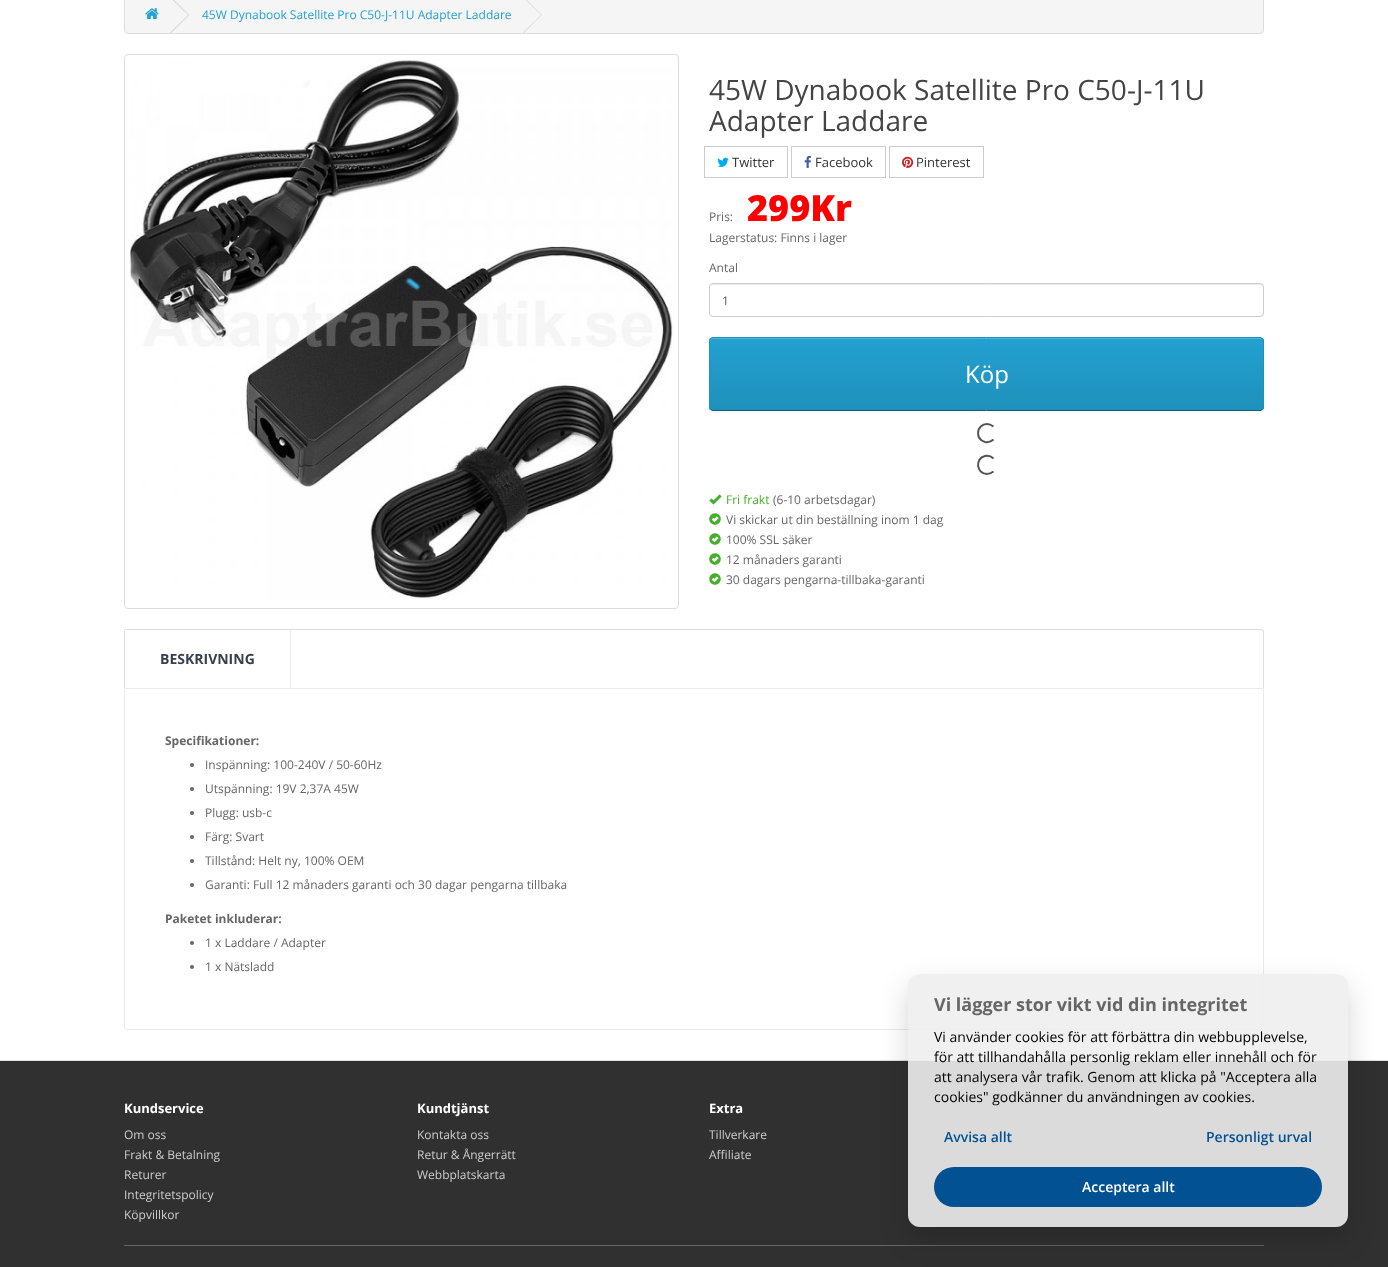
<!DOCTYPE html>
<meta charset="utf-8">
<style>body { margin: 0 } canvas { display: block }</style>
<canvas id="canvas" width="1388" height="1267"></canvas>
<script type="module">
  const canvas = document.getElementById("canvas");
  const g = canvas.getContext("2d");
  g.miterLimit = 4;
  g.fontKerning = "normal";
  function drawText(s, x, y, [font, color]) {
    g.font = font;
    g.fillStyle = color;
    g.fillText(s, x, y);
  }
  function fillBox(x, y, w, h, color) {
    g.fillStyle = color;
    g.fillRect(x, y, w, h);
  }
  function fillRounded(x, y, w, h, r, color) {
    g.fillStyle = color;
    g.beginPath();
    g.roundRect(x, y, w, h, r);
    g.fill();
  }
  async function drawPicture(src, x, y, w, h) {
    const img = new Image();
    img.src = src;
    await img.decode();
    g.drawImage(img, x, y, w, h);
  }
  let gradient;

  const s1 = ["12px Open Sans", "#23A1D1"];
  const s2 = ["28px Open Sans", "#444444"];
  const s3 = ["13px Open Sans", "#333333"];
  const s4 = ["12px Open Sans", "#666666"];
  const s5 = ["800 36px Open Sans", "#FF0000"];
  const s6 = ["12px Open Sans", "#555555"];
  const s7 = ["24px Open Sans", "#FFFFFF"];
  const s8 = ["12px Open Sans", "#43B02A"];
  const s9 = ["bold 14px Open Sans", "#363F4D"];
  const s10 = ["bold 12px Open Sans", "#666666"];
  const s11 = ["bold 13px Open Sans", "#FFFFFF"];
  const s12 = ["12px Open Sans", "#CCCCCC"];
  const s13 = ["bold 18px Open Sans", "#666666"];
  const s14 = ["14px Open Sans", "#000000"];
  const s15 = ["600 14px Open Sans", "#025193"];
  const s16 = ["600 14px Open Sans", "#FFFFFF"];

  fillBox(0, 0, 1388, 1267, "#FFFFFF");
  g.fillStyle = "#F5F5F5";
  g.beginPath();
  g.roundRect(124.5, -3.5, 1139, 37, 3.5);
  g.fill();
  g.strokeStyle = "#DDDDDD";
  g.stroke();
  await drawPicture("pic1.png", 145, 8, 14, 11);
  g.fillStyle = "#DDDDDD";
  g.beginPath();
  g.moveTo(170, -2.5);
  g.lineTo(171, -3.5);
  g.lineTo(189.5, 15);
  g.lineTo(188.5, 15.5);
  g.closePath();
  g.fill();
  g.beginPath();
  g.moveTo(170, 32.5);
  g.lineTo(188.5, 14.5);
  g.lineTo(189.5, 15);
  g.lineTo(171, 33.5);
  g.closePath();
  g.fill();
  drawText("45W Dynabook Satellite Pro C50-J-11U Adapter Laddare", 202, 19, s1);
  g.fillStyle = "#DDDDDD";
  g.beginPath();
  g.moveTo(523, -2.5);
  g.lineTo(523.5, -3.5);
  g.lineTo(542, 15);
  g.lineTo(541.5, 15.5);
  g.closePath();
  g.fill();
  g.beginPath();
  g.moveTo(523, 32.5);
  g.lineTo(541.5, 14.5);
  g.lineTo(542, 15);
  g.lineTo(523.5, 33.5);
  g.closePath();
  g.fill();
  g.beginPath();
  g.roundRect(124.5, 54.5, 554, 554, 3.5);
  g.stroke();
  await drawPicture("pic2.png", 129, 59, 545, 540);
  drawText("45W Dynabook Satellite Pro C50-J-11U", 709, 100, s2);
  drawText("Adapter Laddare", 709, 131, s2);
  g.strokeStyle = "#CCCCCC";
  g.strokeRect(704.5, 146.5, 83, 31);
  await drawPicture("pic3.png", 717, 157, 12, 10);
  drawText("Twitter", 732, 167, s3);
  g.strokeRect(791.5, 146.5, 94, 31);
  await drawPicture("pic4.png", 804, 155, 7, 13);
  drawText("Facebook", 815, 167, s3);
  g.strokeRect(889.5, 146.5, 94, 31);
  await drawPicture("pic5.png", 902, 156, 12, 12);
  drawText("Pinterest", 916, 167, s3);
  drawText("Pris:", 709, 221, s4);
  drawText("299Kr", 747, 221, s5);
  drawText("Lagerstatus: Finns i lager", 709, 242, s4);
  drawText("Antal", 709, 272, s4);
  g.fillStyle = "#ECECEC";
  g.beginPath();
  g.moveTo(713, 285);
  g.lineTo(1260, 285);
  g.bezierCurveTo(1262, 285, 1263, 286, 1263, 288);
  g.bezierCurveTo(1263, 286, 1262, 284, 1260, 284);
  g.lineTo(713, 284);
  g.lineTo(711, 285);
  g.lineTo(710, 286);
  g.lineTo(710, 288);
  g.bezierCurveTo(710, 286, 711, 285, 713, 285);
  g.closePath();
  g.fill();
  g.beginPath();
  g.roundRect(709.5, 283.5, 554, 33, 3.5);
  g.stroke();
  drawText("1", 722, 305, s6);
  g.fillStyle = "rgba(0, 0, 0, 0.05)";
  g.filter = "blur(1px)";
  g.beginPath();
  g.roundRect(709, 338, 555, 74, 4);
  g.fill();
  g.filter = "none";
  g.save();
  g.beginPath();
  g.roundRect(709, 337, 555, 74, 4);
  g.clip();
  gradient = g.createLinearGradient(987, 338, 987, 410);
  gradient.addColorStop(0, "#23A1D1");
  gradient.addColorStop(1, "#1F90BB");
  g.fillStyle = gradient;
  g.fillRect(709, 338, 555, 72);
  g.restore();
  g.fillStyle = "#4FB4DA";
  g.beginPath();
  g.moveTo(713, 339);
  g.lineTo(1260, 339);
  g.bezierCurveTo(1262, 339, 1263, 340, 1263, 342);
  g.bezierCurveTo(1263, 340, 1262, 338, 1260, 338);
  g.lineTo(713, 338);
  g.lineTo(711, 339);
  g.lineTo(710, 340);
  g.lineTo(710, 342);
  g.bezierCurveTo(710, 340, 711, 339, 713, 339);
  g.closePath();
  g.fill();
  g.beginPath();
  g.moveTo(1262.5, 409.5);
  g.bezierCurveTo(1262, 410, 1261, 410.5, 1260, 410.5);
  g.lineTo(713, 410.5);
  g.bezierCurveTo(712, 410.5, 711, 410, 710.5, 409.5);
  g.strokeStyle = "#145E7A";
  g.stroke();
  g.beginPath();
  g.moveTo(710.5, 409.5);
  g.bezierCurveTo(710, 409, 709.5, 408, 709.5, 407);
  g.lineTo(709.5, 341);
  g.bezierCurveTo(709.5, 340, 710, 339, 710.5, 338.5);
  g.bezierCurveTo(711, 338, 712, 337.5, 713, 337.5);
  g.lineTo(1260, 337.5);
  g.bezierCurveTo(1261, 337.5, 1262, 338, 1262.5, 338.5);
  g.bezierCurveTo(1263, 339, 1263.5, 340, 1263.5, 341);
  g.lineTo(1263.5, 407);
  g.bezierCurveTo(1263.5, 408, 1263, 409, 1262.5, 409.5);
  g.strokeStyle = "#1F90BB";
  g.stroke();
  drawText("Köp", 965, 383, s7);
  g.beginPath();
  g.moveTo(993.5, 439.5);
  g.bezierCurveTo(991.5, 441.5, 988, 442.5, 985, 442);
  g.bezierCurveTo(974.5, 439.5, 976.5, 424, 987, 424);
  g.bezierCurveTo(989.5, 424, 991.5, 425, 993.5, 426.5);
  g.moveTo(993.5, 471.5);
  g.bezierCurveTo(991.5, 473, 989.5, 474, 987, 474);
  g.bezierCurveTo(976.5, 474, 974.5, 458.5, 985, 456);
  g.bezierCurveTo(988, 455.5, 991.5, 456.5, 993.5, 458.5);
  g.strokeStyle = "#545454";
  g.lineWidth = 2;
  g.stroke();
  await drawPicture("pic6.png", 709, 494, 13, 11);
  drawText("Fri frakt", 726, 504, s8);
  drawText("(6-10 arbetsdagar)", 773, 504, s4);
  await drawPicture("pic7.png", 709, 513, 12, 12);
  drawText("Vi skickar ut din beställning inom 1 dag", 726, 524, s4);
  await drawPicture("pic7.png", 709, 533, 12, 12);
  drawText("100% SSL säker", 726, 544, s4);
  await drawPicture("pic7.png", 709, 553, 12, 12);
  drawText("12 månaders garanti", 726, 564, s4);
  await drawPicture("pic7.png", 709, 573, 12, 12);
  drawText("30 dagars pengarna-tillbaka-garanti", 726, 584, s4);
  g.fillStyle = "#DDDDDD";
  g.beginPath();
  g.moveTo(127, 629);
  g.lineTo(1261, 629);
  g.bezierCurveTo(1263, 629, 1264, 630, 1264, 632);
  g.lineTo(1264, 688);
  g.lineTo(124, 688);
  g.lineTo(124, 632);
  g.bezierCurveTo(124, 630, 125, 629, 127, 629);
  g.closePath();
  g.moveTo(127, 630);
  g.lineTo(1261, 630);
  g.bezierCurveTo(1262, 630, 1263, 631, 1263, 632);
  g.lineTo(1263, 688);
  g.lineTo(125, 688);
  g.lineTo(125, 632);
  g.bezierCurveTo(125, 631, 126, 630, 127, 630);
  g.closePath();
  g.fill("evenodd");
  fillBox(125, 630, 2, 2, "#FFFFFF");
  fillBox(290, 630, 1, 58, "#EBEBEB");
  drawText("BESKRIVNING", 160, 664, s9);
  g.beginPath();
  g.roundRect(124.5, 688.5, 1139, 341, [0, 0, 2.5, 2.5]);
  g.strokeStyle = "#EBEBEB";
  g.lineWidth = 1;
  g.stroke();
  drawText("Specifikationer:", 165, 745, s10);
  g.beginPath();
  g.arc(192, 765, 2, 0, Math.PI * 2);
  g.fill();
  drawText("Inspänning: 100-240V / 50-60Hz", 205, 769, s4);
  g.beginPath();
  g.arc(192, 789, 2, 0, Math.PI * 2);
  g.fill();
  drawText("Utspänning: 19V 2,37A 45W", 205, 793, s4);
  g.beginPath();
  g.arc(192, 813, 2, 0, Math.PI * 2);
  g.fill();
  drawText("Plugg: usb-c", 205, 817, s4);
  g.beginPath();
  g.arc(192, 837, 2, 0, Math.PI * 2);
  g.fill();
  drawText("Färg: Svart", 205, 841, s4);
  g.beginPath();
  g.arc(192, 861, 2, 0, Math.PI * 2);
  g.fill();
  drawText("Tillstånd: Helt ny, 100% OEM", 205, 865, s4);
  g.beginPath();
  g.arc(192, 885, 2, 0, Math.PI * 2);
  g.fill();
  drawText("Garanti: Full 12 månaders garanti och 30 dagar pengarna tillbaka", 205, 889, s4);
  drawText("Paketet inkluderar:", 165, 923, s10);
  g.beginPath();
  g.arc(192, 943, 2, 0, Math.PI * 2);
  g.fill();
  drawText("1 x Laddare / Adapter", 205, 947, s4);
  g.beginPath();
  g.arc(192, 967, 2, 0, Math.PI * 2);
  g.fill();
  drawText("1 x Nätsladd", 205, 971, s4);
  fillBox(0, 1061, 1388, 206, "#303030");
  fillBox(0, 1060, 1388, 1, "#DDDDDD");
  drawText("Kundservice", 124, 1113, s11);
  drawText("Om oss", 124, 1139, s12);
  drawText("Frakt & Betalning", 124, 1159, s12);
  drawText("Returer", 124, 1179, s12);
  drawText("Integritetspolicy", 124, 1199, s12);
  drawText("Köpvillkor", 124, 1219, s12);
  drawText("Kundtjänst", 417, 1113, s11);
  drawText("Kontakta oss", 417, 1139, s12);
  drawText("Retur & Ångerrätt", 417, 1159, s12);
  drawText("Webbplatskarta", 417, 1179, s12);
  drawText("Extra", 709, 1113, s11);
  drawText("Tillverkare", 709, 1139, s12);
  drawText("Affiliate", 709, 1159, s12);
  fillBox(124, 1245, 1140, 1, "#666666");
  g.save();
  g.beginPath();
  g.moveTo(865, 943);
  g.lineTo(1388, 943);
  g.lineTo(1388, 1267);
  g.lineTo(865, 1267);
  g.closePath();
  g.moveTo(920, 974);
  g.lineTo(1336, 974);
  g.bezierCurveTo(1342.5, 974, 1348, 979.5, 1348, 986);
  g.lineTo(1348, 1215);
  g.bezierCurveTo(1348, 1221.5, 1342.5, 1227, 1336, 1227);
  g.lineTo(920, 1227);
  g.bezierCurveTo(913.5, 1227, 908, 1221.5, 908, 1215);
  g.lineTo(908, 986);
  g.bezierCurveTo(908, 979.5, 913.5, 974, 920, 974);
  g.closePath();
  g.clip("evenodd");
  g.fillStyle = "rgba(0, 0, 0, 0.16)";
  g.filter = "blur(14px)";
  g.beginPath();
  g.roundRect(908, 986, 440, 253, 12);
  g.fill();
  g.filter = "none";
  g.restore();
  fillRounded(908, 974, 440, 253, 12, "rgba(238, 238, 238, 0.9)");
  drawText("Vi lägger stor vikt vid din integritet", 934, 1011, s13);
  drawText("Vi använder cookies för att förbättra din webbupplevelse,", 934, 1042, s14);
  drawText("för att tillhandahålla personlig reklam eller innehåll och för", 934, 1062, s14);
  drawText("att analysera vår trafik. Genom att klicka på \"Acceptera alla", 934, 1082, s14);
  drawText("cookies\" godkänner du användningen av cookies.", 934, 1102, s14);
  drawText("Avvisa allt", 944, 1142, s15);
  drawText("Personligt urval", 1206, 1142, s15);
  fillRounded(934, 1167, 388, 40, 20, "#025193");
  drawText("Acceptera allt", 1082, 1192, s16);
</script>
